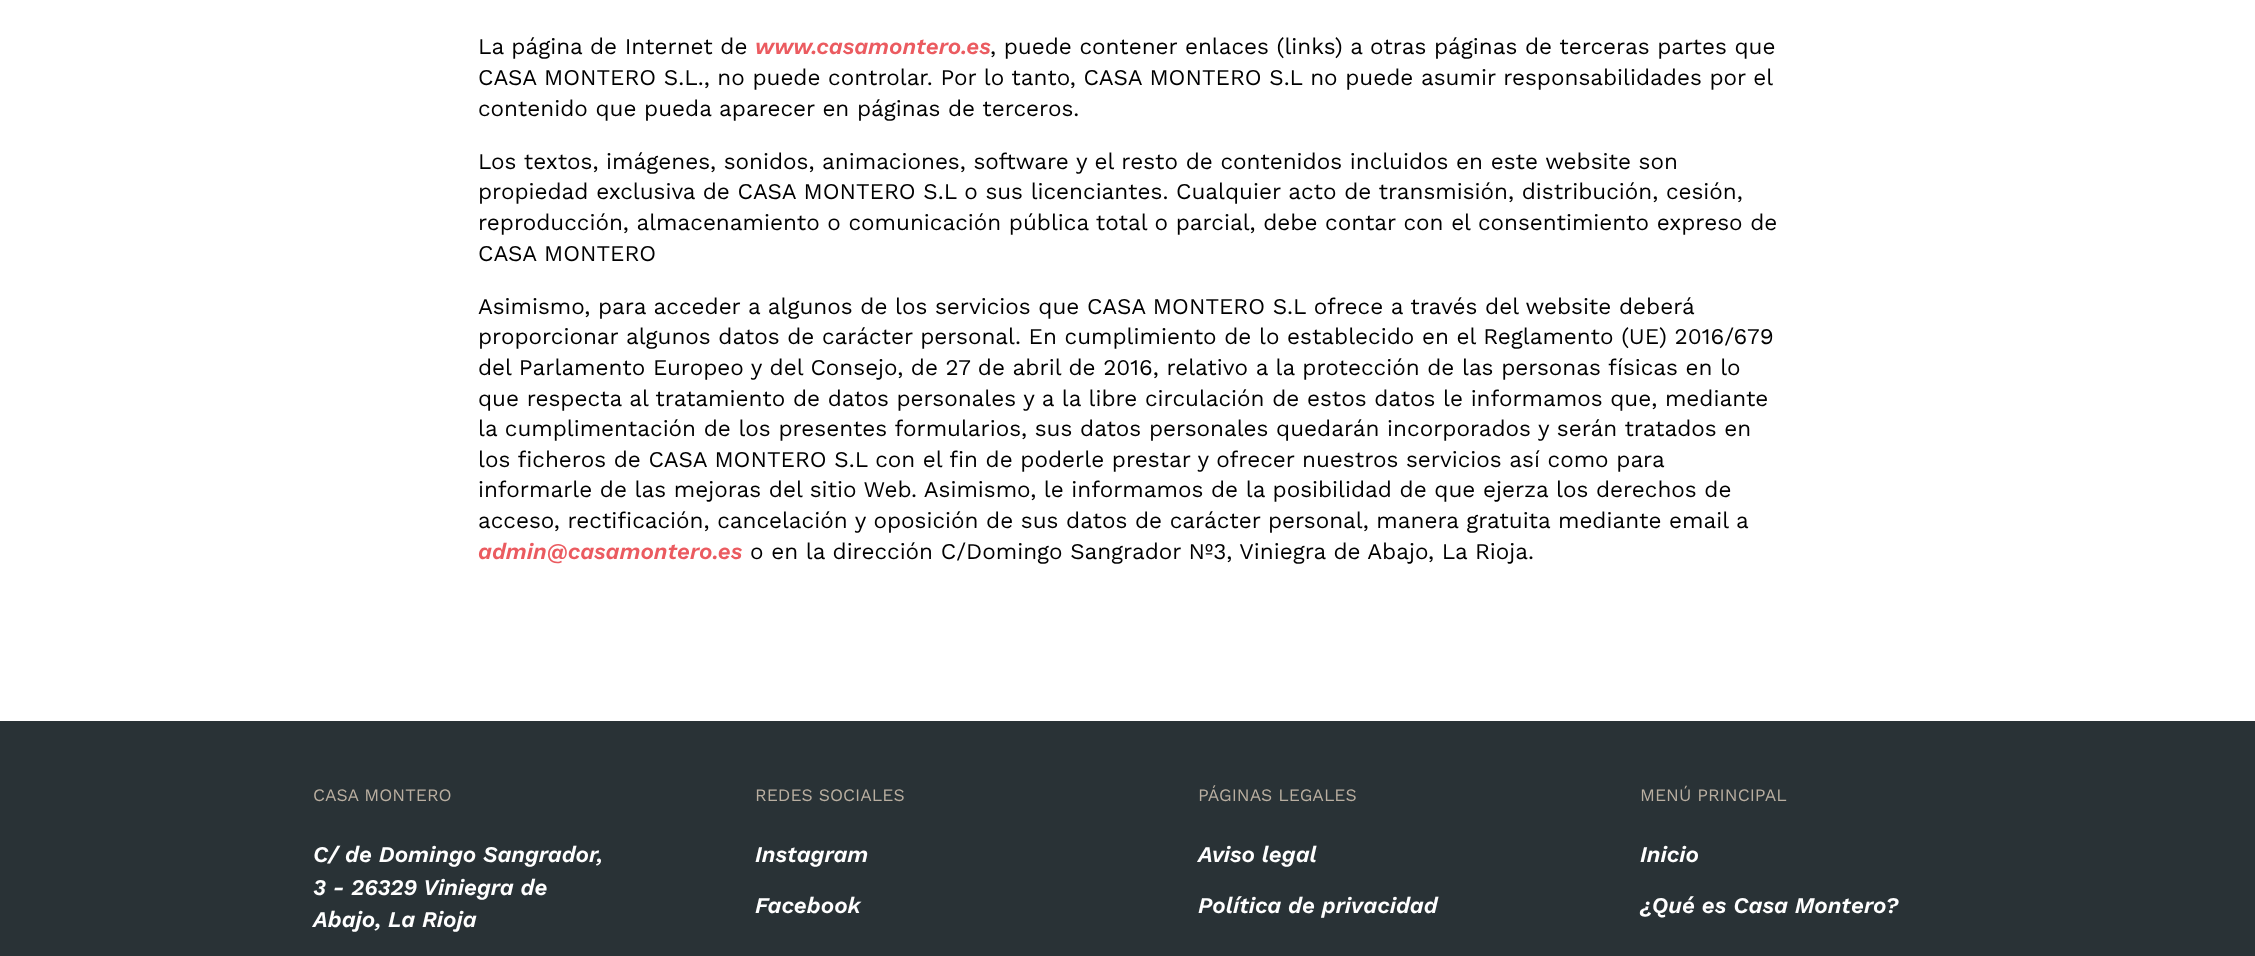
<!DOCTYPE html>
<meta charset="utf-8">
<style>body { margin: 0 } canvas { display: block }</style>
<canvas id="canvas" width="2255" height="956"></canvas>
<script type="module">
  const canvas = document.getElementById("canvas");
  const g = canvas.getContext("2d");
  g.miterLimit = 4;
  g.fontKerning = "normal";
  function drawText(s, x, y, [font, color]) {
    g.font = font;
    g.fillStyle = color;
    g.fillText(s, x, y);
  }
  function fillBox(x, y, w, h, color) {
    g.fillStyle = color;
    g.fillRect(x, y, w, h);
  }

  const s1 = ["22.5px Work Sans", "#000000"];
  const s2 = ["italic 600 22.5px Work Sans", "#EB5B60"];
  const s3 = ["17.5px Work Sans", "#BAAFA1"];
  const s4 = ["italic 600 22.5px Work Sans", "#FFFFFF"];

  fillBox(0, 0, 2255, 956, "#FFFFFF");
  drawText("La página de Internet de", 478, 54, s1);
  drawText("www.casamontero.es", 755, 54, s2);
  drawText(", puede contener enlaces (links) a otras páginas de terceras partes que", 990, 54, s1);
  drawText("CASA MONTERO S.L., no puede controlar. Por lo tanto, CASA MONTERO S.L no puede asumir responsabilidades por el", 478, 85, s1);
  drawText("contenido que pueda aparecer en páginas de terceros.", 478, 116, s1);
  drawText("Los textos, imágenes, sonidos, animaciones, software y el resto de contenidos incluidos en este website son", 478, 169, s1);
  drawText("propiedad exclusiva de CASA MONTERO S.L o sus licenciantes. Cualquier acto de transmisión, distribución, cesión,", 478, 199, s1);
  drawText("reproducción, almacenamiento o comunicación pública total o parcial, debe contar con el consentimiento expreso de", 478, 230, s1);
  drawText("CASA MONTERO", 478, 261, s1);
  drawText("Asimismo, para acceder a algunos de los servicios que CASA MONTERO S.L ofrece a través del website deberá", 478, 314, s1);
  drawText("proporcionar algunos datos de carácter personal. En cumplimiento de lo establecido en el Reglamento (UE) 2016/679", 478, 344, s1);
  drawText("del Parlamento Europeo y del Consejo, de 27 de abril de 2016, relativo a la protección de las personas físicas en lo", 478, 375, s1);
  drawText("que respecta al tratamiento de datos personales y a la libre circulación de estos datos le informamos que, mediante", 478, 406, s1);
  drawText("la cumplimentación de los presentes formularios, sus datos personales quedarán incorporados y serán tratados en", 478, 436, s1);
  drawText("los ficheros de CASA MONTERO S.L con el fin de poderle prestar y ofrecer nuestros servicios así como para", 478, 467, s1);
  drawText("informarle de las mejoras del sitio Web. Asimismo, le informamos de la posibilidad de que ejerza los derechos de", 478, 497, s1);
  drawText("acceso, rectificación, cancelación y oposición de sus datos de carácter personal, manera gratuita mediante email a", 478, 528, s1);
  drawText("admin@casamontero.es", 478, 559, s2);
  drawText("o en la dirección C/Domingo Sangrador Nº3, Viniegra de Abajo, La Rioja.", 750, 559, s1);
  fillBox(0, 721, 2255, 235, "#293236");
  drawText("CASA MONTERO", 313, 801, s3);
  drawText("C/ de Domingo Sangrador,", 313, 862, s4);
  drawText("3 - 26329 Viniegra de", 313, 895, s4);
  drawText("Abajo, La Rioja", 313, 927, s4);
  drawText("REDES SOCIALES", 755, 801, s3);
  drawText("Instagram", 755, 862, s4);
  drawText("Facebook", 755, 913, s4);
  drawText("PÁGINAS LEGALES", 1198, 801, s3);
  drawText("Aviso legal", 1198, 862, s4);
  drawText("Política de privacidad", 1198, 913, s4);
  drawText("MENÚ PRINCIPAL", 1640, 801, s3);
  drawText("Inicio", 1640, 862, s4);
  drawText("¿Qué es Casa Montero?", 1640, 913, s4);
</script>
